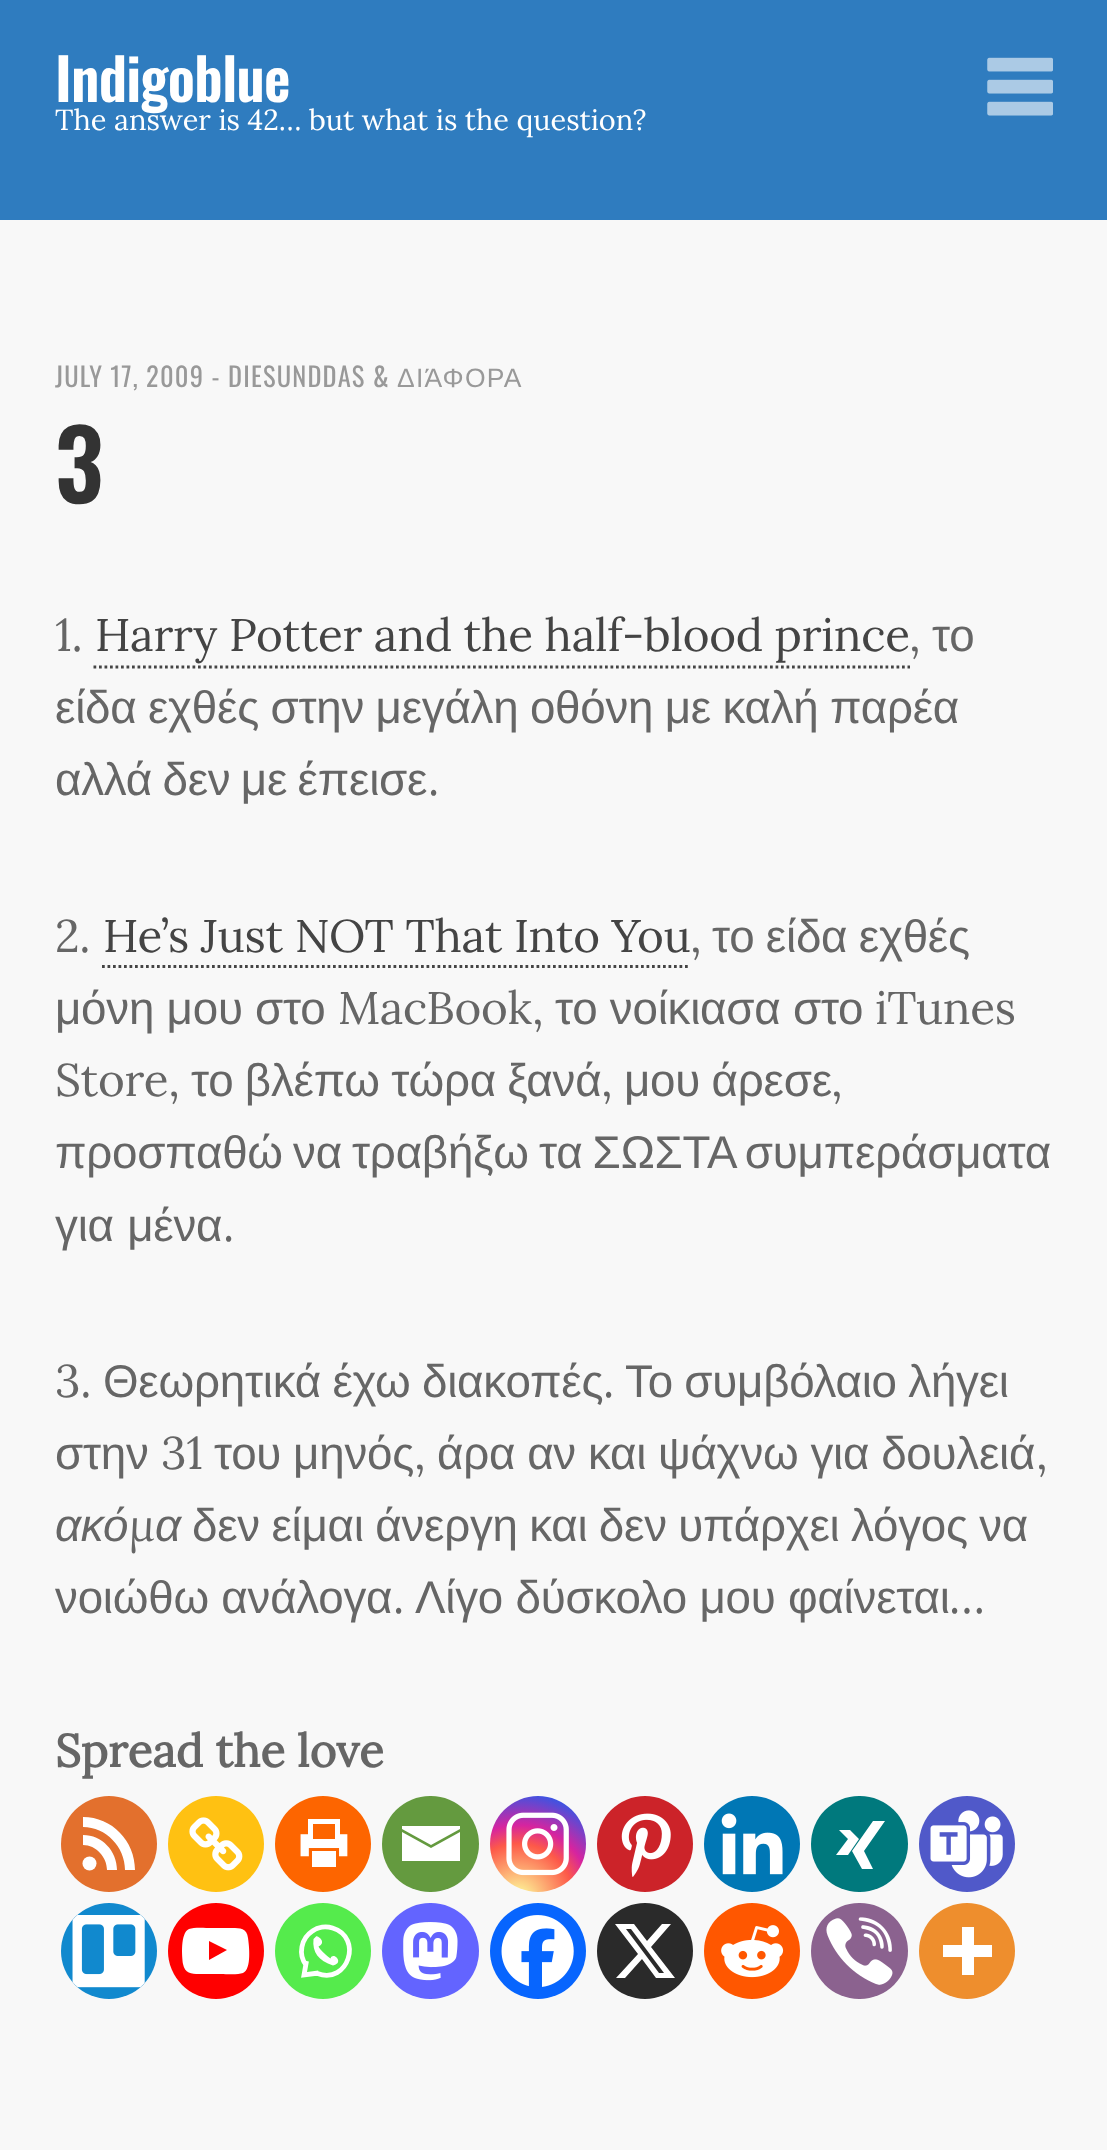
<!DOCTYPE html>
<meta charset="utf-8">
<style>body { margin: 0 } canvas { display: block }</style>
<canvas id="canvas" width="1107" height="2150"></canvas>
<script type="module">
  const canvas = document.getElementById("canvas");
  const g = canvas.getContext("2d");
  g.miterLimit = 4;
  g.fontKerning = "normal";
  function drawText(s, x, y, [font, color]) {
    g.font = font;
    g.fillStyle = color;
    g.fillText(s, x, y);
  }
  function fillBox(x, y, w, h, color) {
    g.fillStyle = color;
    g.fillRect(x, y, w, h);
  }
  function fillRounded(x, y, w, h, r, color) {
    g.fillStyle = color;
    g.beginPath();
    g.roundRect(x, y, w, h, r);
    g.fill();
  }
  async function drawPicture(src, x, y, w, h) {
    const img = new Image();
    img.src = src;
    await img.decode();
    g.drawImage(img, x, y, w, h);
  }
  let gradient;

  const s1 = ["600 57.75px Oswald", "#FFFFFF"];
  const s2 = ["28.9px Lora", "#FFFFFF"];
  const s3 = ["26.5px Oswald", "#999999"];
  const s4 = ["26.5px Liberation Sans", "#999999"];
  const s5 = ["600 96px Oswald", "#333333"];
  const s6 = ["45.75px Lora", "#666666"];
  const s7 = ["45.75px Lora", "#444444"];
  const s8 = ["45.75px Liberation Sans", "#666666"];
  const s9 = ["italic 45.75px Liberation Sans", "#666666"];
  const s10 = ["italic 45.75px Lora", "#666666"];
  const s11 = ["bold 45.75px Lora", "#666666"];

  fillBox(0, 0, 1107, 2150, "#F8F8F8");
  fillBox(0, 0, 1107, 220, "#2F7CBF");
  g.letterSpacing = "-0.75px";
  drawText("Indigoblue", 55, 102, s1);
  g.letterSpacing = "0px";
  drawText("The answer is 42… but what is the question?", 55, 130, s2);
  await drawPicture("pic1.png", 987, 57, 66, 59);
  g.letterSpacing = "1.2px";
  drawText("JULY 17, 2009 - DIESUNDDAS &", 55, 387, s3);
  drawText("ΔΙΆΦΟΡΑ", 397, 387, s4);
  g.letterSpacing = "-3px";
  drawText("3", 55, 503, s5);
  g.letterSpacing = "-0.25px";
  drawText("1.", 55, 651, s6);
  drawText("Harry Potter and the half-blood prince", 95, 651, s7);
  g.beginPath();
  g.moveTo(93.5, 667);
  g.lineTo(910, 667);
  g.strokeStyle = "#444444";
  g.lineWidth = 2.8;
  g.setLineDash([2.75, 2.75]);
  g.stroke();
  drawText(",", 909, 651, s6);
  drawText("το", 932, 651, s8);
  g.wordSpacing = "-1px";
  drawText("είδα εχθές στην μεγάλη οθόνη με καλή παρέα", 55, 723, s8);
  g.wordSpacing = "-2px";
  drawText("αλλά δεν με έπεισε", 55, 795, s8);
  g.wordSpacing = "0px";
  drawText(".", 428, 795, s6);
  drawText("2.", 55, 952, s6);
  drawText("He’s Just NOT That Into You", 103, 952, s7);
  g.beginPath();
  g.moveTo(102, 966.5);
  g.lineTo(690, 966.5);
  g.stroke();
  drawText(",", 690, 952, s6);
  g.wordSpacing = "-1px";
  drawText("το είδα εχθές", 712, 952, s8);
  g.wordSpacing = "0px";
  drawText("μόνη μου στο", 55, 1024, s8);
  drawText("MacBook,", 338, 1024, s6);
  drawText("το νοίκιασα στο", 555, 1024, s8);
  drawText("iTunes", 875, 1024, s6);
  drawText("Store,", 55, 1096, s6);
  g.wordSpacing = "-1px";
  drawText("το βλέπω τώρα ξανά", 191, 1096, s8);
  g.wordSpacing = "0px";
  drawText(",", 601, 1096, s6);
  g.wordSpacing = "-1px";
  drawText("μου άρεσε", 624, 1096, s8);
  g.wordSpacing = "0px";
  drawText(",", 831, 1096, s6);
  g.wordSpacing = "-2.25px";
  drawText("προσπαθώ να τραβήξω τα ΣΩΣΤΑ συμπεράσματα", 55, 1168, s8);
  g.wordSpacing = "1px";
  drawText("για μένα", 55, 1241, s8);
  g.wordSpacing = "0px";
  drawText(".", 223, 1241, s6);
  drawText("3.", 55, 1397, s6);
  g.wordSpacing = "-1px";
  drawText("Θεωρητικά έχω διακοπές", 103, 1397, s8);
  g.wordSpacing = "0px";
  drawText(".", 603, 1397, s6);
  g.wordSpacing = "-1px";
  drawText("Το συμβόλαιο λήγει", 625, 1397, s8);
  g.wordSpacing = "0px";
  drawText("στην", 55, 1469, s8);
  drawText("31", 161, 1469, s6);
  g.wordSpacing = "-0.5px";
  drawText("του μηνός", 214, 1469, s8);
  g.wordSpacing = "0px";
  drawText(",", 414, 1469, s6);
  g.wordSpacing = "-0.5px";
  drawText("άρα αν και ψάχνω για δουλειά", 437, 1469, s8);
  g.wordSpacing = "0px";
  drawText(",", 1036, 1469, s6);
  drawText("ακό", 55, 1541, s9);
  drawText("μ", 129, 1541, s10);
  drawText("α", 155, 1541, s9);
  g.wordSpacing = "-1px";
  drawText("δεν είμαι άνεργη και δεν υπάρχει λόγος να", 192, 1541, s8);
  g.wordSpacing = "0px";
  drawText("νοιώθω ανάλογα", 55, 1613, s8);
  drawText(".", 393, 1613, s6);
  drawText("Λίγο δύσκολο μου φαίνεται", 415, 1613, s8);
  drawText("…", 949, 1613, s6);
  g.letterSpacing = "0px";
  drawText("Spread the love", 55, 1767, s11);
  g.fillStyle = "#E3702D";
  g.beginPath();
  g.arc(109, 1844, 48, 0, Math.PI * 2);
  g.fill();
  g.fillStyle = "#FFFFFF";
  g.beginPath();
  g.arc(89.5, 1863.5, 7, 0, Math.PI * 2);
  g.fill();
  g.beginPath();
  g.moveTo(83, 1845);
  g.bezierCurveTo(96, 1845, 107, 1857, 107, 1870);
  g.lineTo(117, 1870);
  g.bezierCurveTo(117, 1851, 102, 1835, 83, 1835);
  g.closePath();
  g.moveTo(83, 1827);
  g.bezierCurveTo(106, 1827, 125, 1847, 125, 1870);
  g.lineTo(135, 1870);
  g.bezierCurveTo(135, 1841, 112, 1817, 83, 1817);
  g.closePath();
  g.fill();
  g.fillStyle = "#FFC112";
  g.beginPath();
  g.arc(216, 1844, 48, 0, Math.PI * 2);
  g.fill();
  await drawPicture("pic2.png", 189, 1817, 54, 54);
  g.fillStyle = "#FD6500";
  g.beginPath();
  g.arc(323, 1844, 48, 0, Math.PI * 2);
  g.fill();
  await drawPicture("pic3.png", 300, 1819, 48, 48);
  fillRounded(382, 1796, 97, 96, 48, "#649A3F");
  g.fillStyle = "#FFFFFF";
  g.beginPath();
  g.moveTo(399, 1826);
  g.lineTo(460, 1826);
  g.lineTo(460, 1829);
  g.lineTo(431, 1845);
  g.lineTo(402, 1829);
  g.lineTo(402, 1826);
  g.moveTo(402, 1832);
  g.lineTo(431, 1848);
  g.lineTo(460, 1832);
  g.lineTo(460, 1861);
  g.lineTo(402, 1861);
  g.lineTo(402, 1832);
  g.fill();
  gradient = g.createRadialGradient(518, 1899, 0, 518, 1899, 123);
  gradient.addColorStop(0, "#FDF497");
  gradient.addColorStop(0.05, "#FDF497");
  gradient.addColorStop(0.45, "#FD5949");
  gradient.addColorStop(0.6, "#D6249F");
  gradient.addColorStop(0.9, "#285AEB");
  g.fillStyle = gradient;
  g.beginPath();
  g.arc(538, 1844, 48, 0, Math.PI * 2);
  g.fill();
  await drawPicture("pic4.png", 506, 1812, 63, 64);
  g.fillStyle = "#CC2329";
  g.beginPath();
  g.arc(645, 1844, 48, 0, Math.PI * 2);
  g.fill();
  await drawPicture("pic5.png", 621, 1813, 50, 64);
  g.fillStyle = "#0077B5";
  g.beginPath();
  g.arc(752, 1844, 48, 0, Math.PI * 2);
  g.fill();
  await drawPicture("pic6.png", 721, 1813, 62, 62);
  fillRounded(811, 1796, 97, 96, 48, "#00797D");
  g.fillStyle = "#FFFFFF";
  g.beginPath();
  g.moveTo(839, 1830);
  g.lineTo(850, 1830);
  g.lineTo(859, 1839);
  g.lineTo(848, 1855);
  g.lineTo(836, 1855);
  g.lineTo(848, 1839);
  g.closePath();
  g.moveTo(873, 1821);
  g.lineTo(885, 1821);
  g.lineTo(864, 1851);
  g.lineTo(873, 1869);
  g.lineTo(862, 1869);
  g.lineTo(852, 1851);
  g.closePath();
  g.fill();
  g.fillStyle = "#5059C9";
  g.beginPath();
  g.arc(967, 1844, 48, 0, Math.PI * 2);
  g.fill();
  await drawPicture("pic7.png", 930, 1810, 73, 68);
  g.fillStyle = "#1189CE";
  g.beginPath();
  g.arc(109, 1951, 48, 0, Math.PI * 2);
  g.fill();
  await drawPicture("pic8.png", 72, 1915, 73, 73);
  g.fillStyle = "#FF0000";
  g.beginPath();
  g.arc(216, 1951, 48, 0, Math.PI * 2);
  g.fill();
  g.fillStyle = "#FFFFFF";
  g.beginPath();
  g.moveTo(248, 1938);
  g.bezierCurveTo(247, 1928, 240, 1928, 232, 1928);
  g.lineTo(211, 1928);
  g.bezierCurveTo(206, 1928, 194, 1927, 189, 1929);
  g.bezierCurveTo(180, 1933, 182, 1957, 183, 1964);
  g.bezierCurveTo(185, 1975, 194, 1974, 203, 1974);
  g.lineTo(221, 1974);
  g.bezierCurveTo(226, 1974, 238, 1975, 243, 1973);
  g.bezierCurveTo(252, 1969, 249, 1945, 248, 1938);
  g.closePath();
  g.moveTo(209, 1960);
  g.lineTo(209, 1941);
  g.lineTo(227, 1950);
  g.closePath();
  g.fill();
  g.fillStyle = "#55EB4C";
  g.beginPath();
  g.arc(323, 1951, 48, 0, Math.PI * 2);
  g.fill();
  g.beginPath();
  g.moveTo(317.5, 1973.5);
  g.bezierCurveTo(348, 1985, 363.5, 1937.5, 332.5, 1928);
  g.bezierCurveTo(326, 1926, 318, 1927, 312.5, 1931);
  g.bezierCurveTo(301, 1938.5, 298, 1954, 306, 1965);
  g.moveTo(306.5, 1961);
  g.lineTo(304, 1975);
  g.lineTo(318.5, 1973);
  g.strokeStyle = "#FFFFFF";
  g.lineWidth = 4.8;
  g.setLineDash([]);
  g.stroke();
  g.fillStyle = "#FFFFFF";
  g.beginPath();
  g.moveTo(313.5, 1939);
  g.bezierCurveTo(312, 1952, 318.5, 1961, 333, 1965.5);
  g.bezierCurveTo(345, 1963, 333, 1951, 330.5, 1958.5);
  g.bezierCurveTo(324, 1953.5, 320, 1949.5, 318.5, 1946.5);
  g.bezierCurveTo(328, 1941.5, 316, 1934.5, 316, 1936.5);
  g.fill();
  fillRounded(382, 1903, 97, 96, 48, "#6364FF");
  await drawPicture("pic9.png", 403, 1922, 55, 59);
  g.fillStyle = "#0765FE";
  g.beginPath();
  g.arc(538, 1951, 48, 0, Math.PI * 2);
  g.fill();
  await drawPicture("pic10.png", 501, 1915, 73, 72);
  g.fillStyle = "#2A2A2A";
  g.beginPath();
  g.arc(645, 1951, 48, 0, Math.PI * 2);
  g.fill();
  g.fillStyle = "#FFFFFF";
  g.beginPath();
  g.moveTo(662, 1924);
  g.lineTo(671, 1924);
  g.lineTo(651, 1947);
  g.lineTo(675, 1978);
  g.lineTo(656, 1978);
  g.lineTo(642, 1959);
  g.lineTo(625, 1978);
  g.lineTo(616, 1978);
  g.lineTo(638, 1954);
  g.lineTo(615, 1924);
  g.lineTo(634, 1924);
  g.lineTo(647, 1941);
  g.closePath();
  g.moveTo(659, 1973);
  g.lineTo(664, 1973);
  g.lineTo(631, 1929);
  g.lineTo(626, 1929);
  g.closePath();
  g.fill();
  g.fillStyle = "#FF5700";
  g.beginPath();
  g.arc(752, 1951, 48, 0, Math.PI * 2);
  g.fill();
  await drawPicture("pic11.png", 721, 1925, 63, 53);
  fillRounded(811, 1903, 97, 96, 48, "#8B628F");
  await drawPicture("pic12.png", 826, 1917, 67, 68);
  g.fillStyle = "#EE8E2D";
  g.beginPath();
  g.arc(967, 1951, 48, 0, Math.PI * 2);
  g.fill();
  g.fillStyle = "#FFFFFF";
  g.beginPath();
  g.moveTo(974, 1945);
  g.lineTo(974, 1927);
  g.lineTo(962, 1927);
  g.lineTo(962, 1945);
  g.lineTo(943, 1945);
  g.lineTo(943, 1957);
  g.lineTo(962, 1957);
  g.lineTo(962, 1975);
  g.lineTo(974, 1975);
  g.lineTo(974, 1957);
  g.lineTo(992, 1957);
  g.lineTo(992, 1945);
  g.closePath();
  g.fill("evenodd");
</script>
